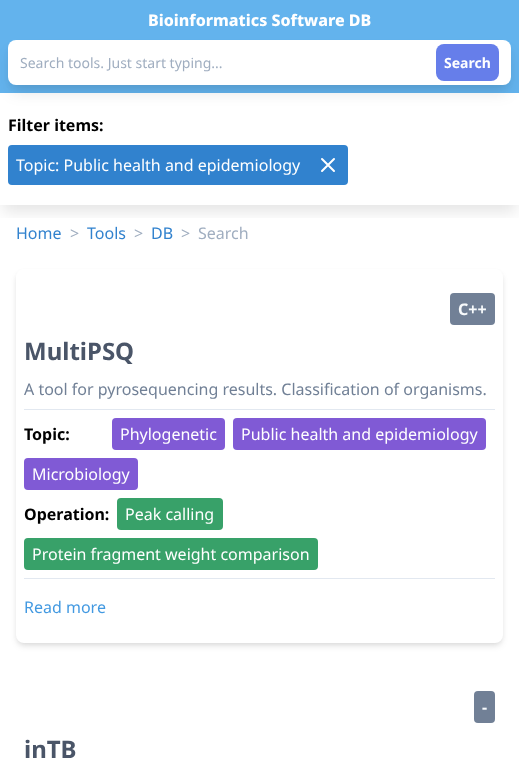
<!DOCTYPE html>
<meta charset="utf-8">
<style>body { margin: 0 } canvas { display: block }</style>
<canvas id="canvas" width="519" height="762"></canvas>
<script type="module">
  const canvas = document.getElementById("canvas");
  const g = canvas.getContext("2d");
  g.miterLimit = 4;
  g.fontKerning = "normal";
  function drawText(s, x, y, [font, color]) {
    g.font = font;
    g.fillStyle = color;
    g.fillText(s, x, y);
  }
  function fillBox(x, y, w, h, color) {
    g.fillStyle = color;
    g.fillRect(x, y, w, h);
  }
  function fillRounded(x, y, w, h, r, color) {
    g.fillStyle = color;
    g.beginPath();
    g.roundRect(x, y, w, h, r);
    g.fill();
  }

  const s1 = ["800 16px Noto Sans", "#FFFFFF"];
  const s2 = ["14px Noto Sans", "#A0AEC0"];
  const s3 = ["bold 14px Noto Sans", "#FFFFFF"];
  const s4 = ["bold 16px Noto Sans", "#000000"];
  const s5 = ["16px Noto Sans", "#FFFFFF"];
  const s6 = ["16px Noto Sans", "#3182CE"];
  const s7 = ["16px Noto Sans", "#A0AEC0"];
  const s8 = ["bold 16px Noto Sans", "#F7FAFC"];
  const s9 = ["bold 24px Noto Sans", "#4A5568"];
  const s10 = ["16px Noto Sans", "#718096"];
  const s11 = ["16px Noto Sans", "#4299E1"];

  fillBox(0, 0, 519, 762, "#FFFFFF");
  fillBox(0, 0, 519, 93, "#63B3ED");
  drawText("Bioinformatics Software DB", 148, 26, s1);
  g.fillStyle = "rgba(0, 0, 0, 0.05)";
  g.filter = "blur(3px)";
  g.beginPath();
  g.roundRect(10, 46, 499, 41, 6);
  g.fill();
  g.filter = "none";
  g.fillStyle = "rgba(0, 0, 0, 0.1)";
  g.filter = "blur(7.5px)";
  g.beginPath();
  g.roundRect(11, 53, 497, 39, 5);
  g.fill();
  g.filter = "none";
  g.save();
  g.beginPath();
  g.rect(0, 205, 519, 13);
  g.clip();
  g.filter = "blur(7.5px)";
  g.beginPath();
  g.rect(3, 106, 513, 106);
  g.fill();
  g.filter = "none";
  g.restore();
  fillRounded(8, 40, 503, 45, 8, "#FFFFFF");
  drawText("Search tools. Just start typing...", 20, 68, s2);
  fillRounded(436, 44, 63, 37, 8, "#667EEA");
  drawText("Search", 444, 68, s3);
  drawText("Filter items:", 8, 131, s4);
  fillRounded(8, 145, 340, 40, 4, "#3182CE");
  drawText("Topic: Public health and epidemiology", 16, 171, s5);
  g.beginPath();
  g.moveTo(322, 171);
  g.lineTo(334, 159);
  g.moveTo(322, 159);
  g.lineTo(334, 171);
  g.strokeStyle = "#FFFFFF";
  g.lineWidth = 2;
  g.lineCap = "round";
  g.lineJoin = "round";
  g.stroke();
  drawText("Home", 16, 239, s6);
  drawText(">", 70, 239, s7);
  drawText("Tools", 87, 239, s6);
  drawText(">", 134, 239, s7);
  drawText("DB", 151, 239, s6);
  drawText(">", 181, 239, s7);
  drawText("Search", 198, 239, s7);
  g.fillStyle = "rgba(0, 0, 0, 0.06)";
  g.filter = "blur(2px)";
  g.beginPath();
  g.roundRect(17, 272, 485, 372, 7);
  g.fill();
  g.filter = "none";
  g.fillStyle = "rgba(0, 0, 0, 0.1)";
  g.filter = "blur(3px)";
  g.beginPath();
  g.roundRect(17, 274, 485, 372, 7);
  g.fill();
  g.filter = "none";
  fillRounded(16, 269, 487, 374, 8, "#FFFFFF");
  fillRounded(450, 293, 45, 32, 4, "#718096");
  drawText("C++", 458, 315, s8);
  drawText("MultiPSQ", 24, 360, s9);
  drawText("A tool for pyrosequencing results. Classification of organisms.", 24, 395, s10);
  fillBox(24, 409, 471, 1, "#E2E8F0");
  drawText("Topic:", 24, 440, s4);
  fillRounded(112, 418, 113, 32, 4, "#805AD5");
  drawText("Phylogenetic", 120, 440, s5);
  fillRounded(233, 418, 253, 32, 4, "#805AD5");
  drawText("Public health and epidemiology", 241, 440, s5);
  fillRounded(24, 458, 114, 32, 4, "#805AD5");
  drawText("Microbiology", 32, 480, s5);
  drawText("Operation:", 24, 520, s4);
  fillRounded(117, 498, 106, 32, 4, "#38A169");
  drawText("Peak calling", 125, 520, s5);
  fillRounded(24, 538, 294, 32, 4, "#38A169");
  drawText("Protein fragment weight comparison", 32, 560, s5);
  fillBox(24, 578, 471, 1, "#E2E8F0");
  drawText("Read more", 24, 613, s11);
  fillRounded(474, 691, 21, 32, 4, "#718096");
  drawText("-", 482, 713, s8);
  drawText("inTB", 24, 758, s9);
</script>
